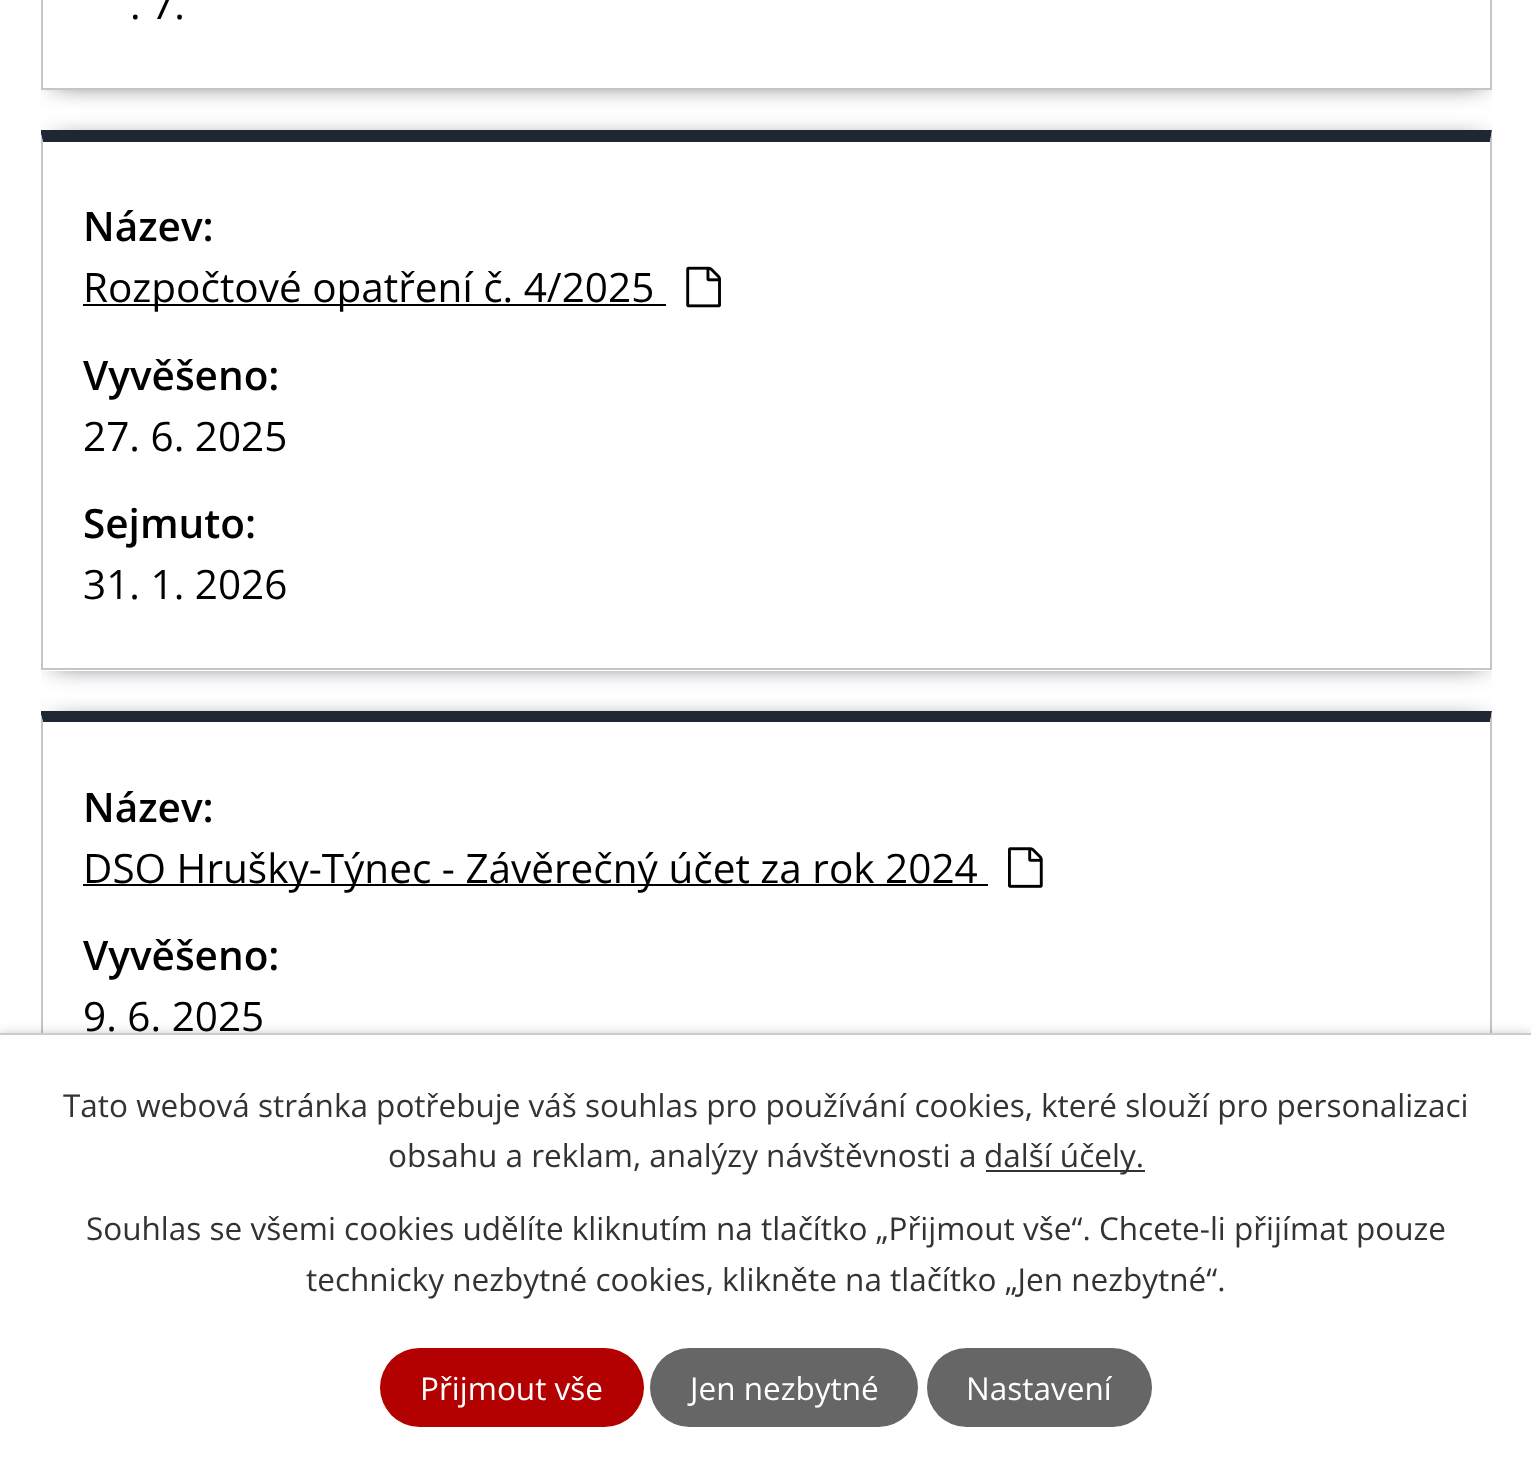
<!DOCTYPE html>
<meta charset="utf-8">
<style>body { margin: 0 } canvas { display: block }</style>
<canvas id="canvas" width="1531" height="1468"></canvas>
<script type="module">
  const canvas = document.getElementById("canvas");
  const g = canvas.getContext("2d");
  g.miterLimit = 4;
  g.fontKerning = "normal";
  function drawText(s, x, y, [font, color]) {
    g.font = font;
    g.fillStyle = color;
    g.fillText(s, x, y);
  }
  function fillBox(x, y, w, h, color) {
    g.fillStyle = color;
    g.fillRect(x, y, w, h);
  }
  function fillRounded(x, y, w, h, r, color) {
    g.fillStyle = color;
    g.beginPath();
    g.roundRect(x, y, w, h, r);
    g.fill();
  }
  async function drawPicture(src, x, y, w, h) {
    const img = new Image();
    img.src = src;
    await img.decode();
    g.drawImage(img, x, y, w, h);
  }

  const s1 = ["40.5px Open Sans", "#000000"];
  const s2 = ["600 40.5px Open Sans", "#000000"];
  const s3 = ["31.5px Open Sans", "#333333"];
  const s4 = ["31.5px Open Sans", "#FFFFFF"];

  fillBox(0, 0, 1531, 1468, "#FFFFFF");
  g.save();
  g.beginPath();
  g.rect(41, 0, 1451, 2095);
  g.clip();
  g.beginPath();
  g.rect(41, 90, 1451, 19);
  g.clip();
  g.fillStyle = "#202734";
  g.filter = "blur(13.5px)";
  g.beginPath();
  g.rect(54, -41, 1429, 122);
  g.fill();
  g.filter = "none";
  g.restore();
  g.fillStyle = "#C5C5C5";
  g.beginPath();
  g.moveTo(1492, -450);
  g.lineTo(1492, 90);
  g.lineTo(1490, 88);
  g.lineTo(1490, -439);
  g.closePath();
  g.fill();
  fillBox(41, 88, 1451, 2, "#C5C5C5");
  g.save();
  g.beginPath();
  g.rect(41, 0, 1451, 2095);
  g.clip();
  g.beginPath();
  g.moveTo(40, 90);
  g.lineTo(40, -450);
  g.lineTo(43, -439);
  g.lineTo(43, 88);
  g.closePath();
  g.fill();
  g.restore();
  drawText(". 7.", 130, 19, s1);
  g.save();
  g.beginPath();
  g.rect(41, 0, 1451, 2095);
  g.clip();
  g.beginPath();
  g.moveTo(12, 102);
  g.lineTo(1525, 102);
  g.lineTo(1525, 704);
  g.lineTo(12, 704);
  g.closePath();
  g.moveTo(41, 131);
  g.lineTo(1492, 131);
  g.lineTo(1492, 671);
  g.lineTo(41, 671);
  g.closePath();
  g.clip("evenodd");
  g.fillStyle = "#202734";
  g.filter = "blur(13.5px)";
  g.beginPath();
  g.rect(54, 144, 1429, 518);
  g.fill();
  g.filter = "none";
  g.restore();
  g.save();
  g.beginPath();
  g.rect(41, 0, 1451, 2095);
  g.clip();
  g.fillStyle = "#202734";
  g.beginPath();
  g.moveTo(40, 130);
  g.lineTo(1492, 130);
  g.lineTo(1490, 142);
  g.lineTo(43, 142);
  g.closePath();
  g.fill();
  g.restore();
  g.fillStyle = "#C5C5C5";
  g.beginPath();
  g.moveTo(1492, 130);
  g.lineTo(1492, 670);
  g.lineTo(1490, 668);
  g.lineTo(1490, 142);
  g.closePath();
  g.fill();
  fillBox(41, 668, 1451, 2, "#C5C5C5");
  g.save();
  g.beginPath();
  g.rect(41, 0, 1451, 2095);
  g.clip();
  g.beginPath();
  g.moveTo(40, 670);
  g.lineTo(40, 130);
  g.lineTo(43, 142);
  g.lineTo(43, 668);
  g.closePath();
  g.fill();
  g.restore();
  drawText("Název:", 83, 241, s2);
  fillBox(83, 304, 583, 2, "#000000");
  drawText("Rozpočtové opatření č. 4/2025", 83, 302, s1);
  await drawPicture("pic1.png", 686, 266, 35, 42);
  drawText("Vyvěšeno:", 83, 390, s2);
  drawText("27. 6. 2025", 83, 451, s1);
  drawText("Sejmuto:", 83, 538, s2);
  drawText("31. 1. 2026", 83, 599, s1);
  g.save();
  g.beginPath();
  g.rect(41, 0, 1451, 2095);
  g.clip();
  g.beginPath();
  g.rect(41, 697, 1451, 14);
  g.clip();
  g.fillStyle = "#202734";
  g.filter = "blur(13.5px)";
  g.beginPath();
  g.rect(54, 725, 1429, 517);
  g.fill();
  g.filter = "none";
  g.restore();
  g.save();
  g.beginPath();
  g.rect(41, 0, 1451, 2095);
  g.clip();
  g.fillStyle = "#202734";
  g.beginPath();
  g.moveTo(40, 711);
  g.lineTo(1492, 711);
  g.lineTo(1490, 722);
  g.lineTo(43, 722);
  g.closePath();
  g.fill();
  g.restore();
  g.fillStyle = "#C5C5C5";
  g.beginPath();
  g.moveTo(1492, 711);
  g.lineTo(1492, 1251);
  g.lineTo(1490, 1249);
  g.lineTo(1490, 722);
  g.closePath();
  g.fill();
  g.save();
  g.beginPath();
  g.rect(41, 0, 1451, 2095);
  g.clip();
  g.beginPath();
  g.moveTo(40, 1251);
  g.lineTo(40, 711);
  g.lineTo(43, 722);
  g.lineTo(43, 1249);
  g.closePath();
  g.fill();
  g.restore();
  drawText("Název:", 83, 822, s2);
  fillBox(83, 884, 905, 2, "#000000");
  drawText("DSO Hrušky-Týnec - Závěrečný účet za rok 2024", 83, 883, s1);
  await drawPicture("pic2.png", 1008, 847, 35, 41);
  drawText("Vyvěšeno:", 83, 970, s2);
  drawText("9. 6. 2025", 83, 1031, s1);
  g.fillStyle = "rgba(0, 0, 0, 0.2)";
  g.filter = "blur(5.5px)";
  g.beginPath();
  g.rect(0, 1033, 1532, 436);
  g.fill();
  g.filter = "none";
  fillBox(0, 1035, 1531, 433, "#FFFFFF");
  fillBox(0, 1033, 1531, 2, "#CCCCCC");
  drawText("Tato webová stránka potřebuje váš souhlas pro používání cookies, které slouží pro personalizaci", 63, 1117, s3);
  drawText("obsahu a reklam, analýzy návštěvnosti a", 388, 1167, s3);
  fillBox(986, 1170, 159, 2, "#333333");
  drawText("další účely.", 984, 1167, s3);
  drawText("Souhlas se všemi cookies udělíte kliknutím na tlačítko „Přijmout vše“. Chcete-li přijímat pouze", 86, 1240, s3);
  drawText("technicky nezbytné cookies, klikněte na tlačítko „Jen nezbytné“.", 306, 1291, s3);
  fillRounded(380, 1348, 264, 79, 39.5, "#B30101");
  drawText("Přijmout vše", 420, 1400, s4);
  fillRounded(650, 1348, 268, 79, 39.5, "#666666");
  drawText("Jen nezbytné", 690, 1400, s4);
  fillRounded(927, 1348, 225, 79, 39.5, "#666666");
  drawText("Nastavení", 966, 1400, s4);
</script>
